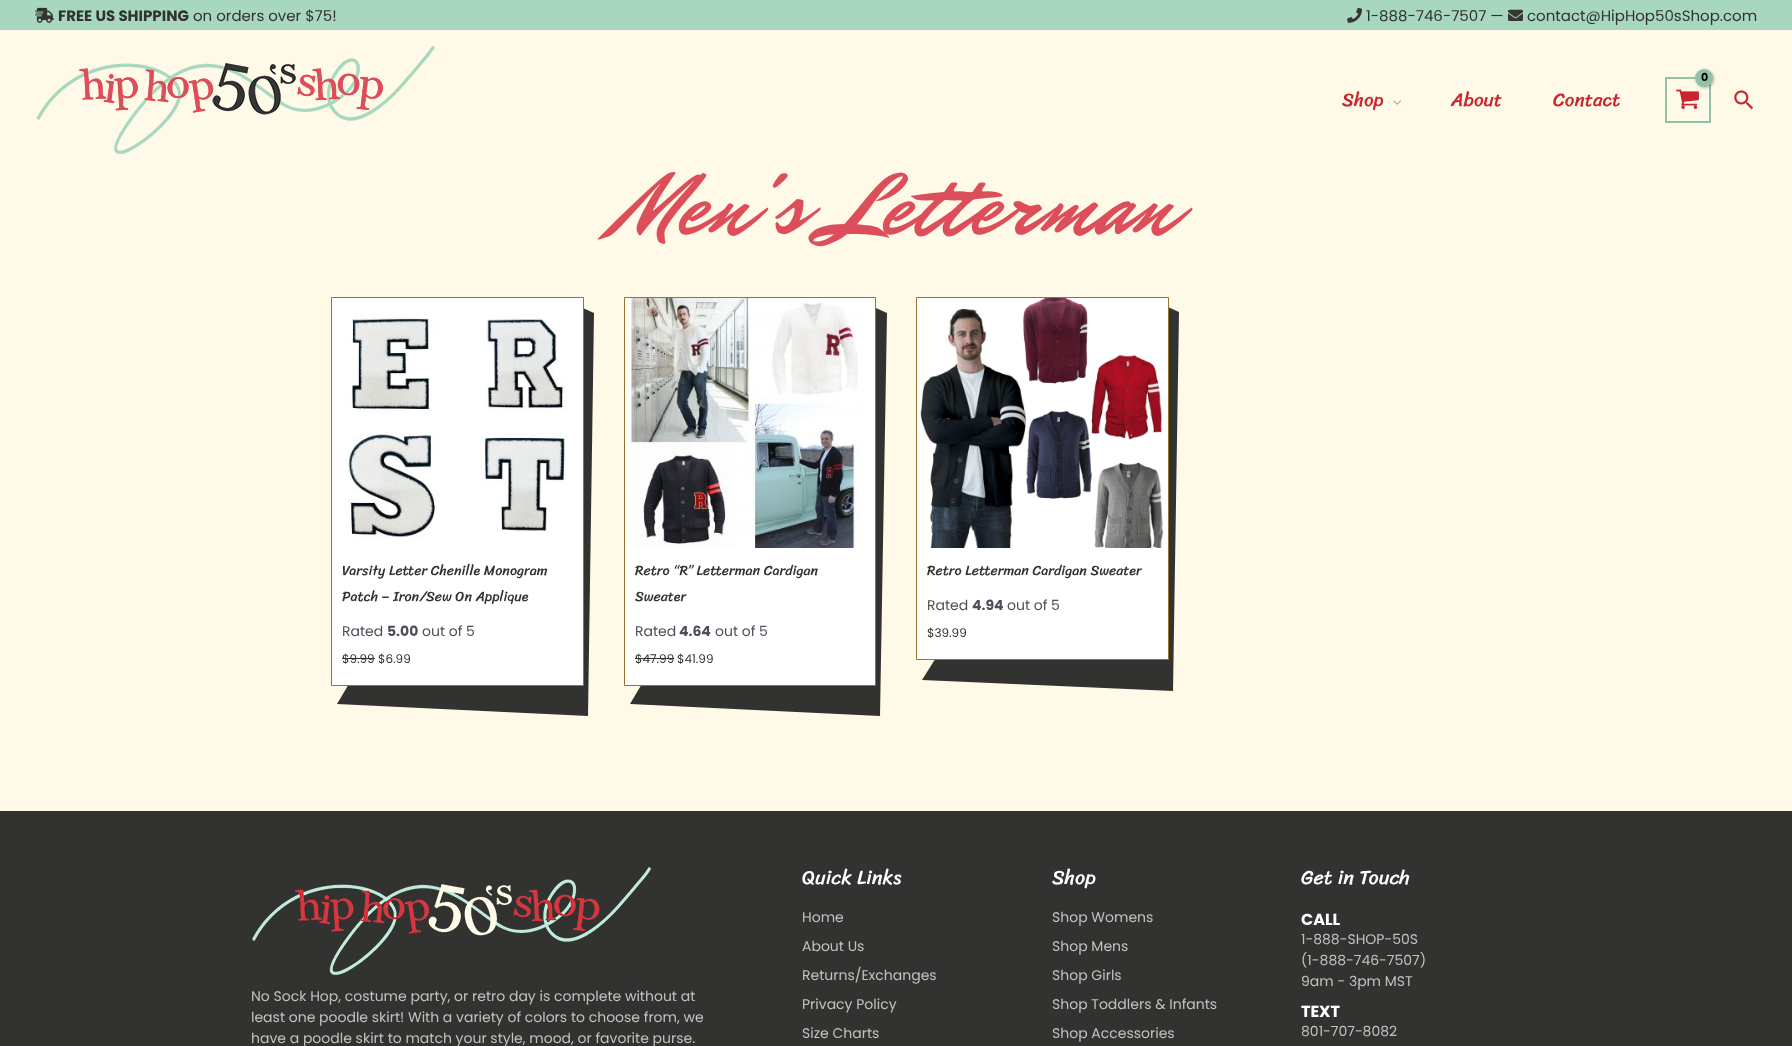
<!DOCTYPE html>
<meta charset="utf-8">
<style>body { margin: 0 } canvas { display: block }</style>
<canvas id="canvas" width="1792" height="1046"></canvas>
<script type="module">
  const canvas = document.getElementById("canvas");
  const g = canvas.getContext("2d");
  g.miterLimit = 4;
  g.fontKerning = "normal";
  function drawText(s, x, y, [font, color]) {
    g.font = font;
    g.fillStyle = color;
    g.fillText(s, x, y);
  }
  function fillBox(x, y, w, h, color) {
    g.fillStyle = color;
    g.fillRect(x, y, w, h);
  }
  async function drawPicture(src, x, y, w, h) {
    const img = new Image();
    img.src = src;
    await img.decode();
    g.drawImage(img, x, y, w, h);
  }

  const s1 = ["bold 15px Poppins", "#323230"];
  const s2 = ["15px Poppins", "#323230"];
  const s3 = ["bold 11px Poppins", "#000000"];
  const s4 = ["19px Sriracha", "#C9252E"];
  const s5 = ["90px Mr Dafoe", "#DD4E5B"];
  const s6 = ["14px Sriracha", "#323230"];
  const s7 = ["14px Poppins", "#4B4F58"];
  const s8 = ["bold 14px Poppins", "#4B4F58"];
  const s9 = ["12px Poppins", "#323230"];
  const s10 = ["14px Poppins", "#C2C2C1"];
  const s11 = ["20px Sriracha", "#FFFFFF"];
  const s12 = ["bold 16px Poppins", "#FFFFFF"];

  fillBox(0, 0, 1792, 1046, "#FFFAE7");
  fillBox(0, 0, 1792, 30, "#A7D7BE");
  await drawPicture("pic1.png", 35, 7, 19, 16);
  drawText("FREE US SHIPPING", 58, 21, s1);
  drawText("on orders over $75!", 193, 21, s2);
  await drawPicture("pic2.png", 1347, 7, 15, 16);
  drawText("1-888-746-7507 —", 1366, 21, s2);
  await drawPicture("pic3.png", 1508, 9, 15, 12);
  drawText("contact@HipHop50sShop.com", 1527, 21, s2);
  await drawPicture("pic4.png", 36, 46, 399, 108);
  g.strokeStyle = "#91C1A7";
  g.lineWidth = 2;
  g.strokeRect(1666, 78, 44, 44);
  await drawPicture("pic5.png", 1676, 89, 23, 20);
  g.fillStyle = "rgba(0, 0, 0, 0.3)";
  g.filter = "blur(1.5px)";
  g.beginPath();
  g.roundRect(1696, 70, 18, 18, 9);
  g.fill();
  g.filter = "none";
  g.fillStyle = "#91C1A7";
  g.beginPath();
  g.arc(1704, 78, 9, 0, Math.PI * 2);
  g.fill();
  drawText("0", 1701, 81, s3);
  drawText("Shop", 1342, 106, s4);
  await drawPicture("pic6.png", 1393, 100, 8, 5);
  drawText("About", 1451, 106, s4);
  drawText("Contact", 1553, 106, s4);
  await drawPicture("pic7.png", 1734, 90, 20, 20);
  drawText("Men's Letterman", 617, 233, s5);
  g.fillStyle = "#323230";
  g.beginPath();
  g.moveTo(574, 304);
  g.lineTo(337, 704);
  g.lineTo(588, 716);
  g.lineTo(594, 313);
  g.closePath();
  g.fill();
  g.fillStyle = "#FFFFFF";
  g.beginPath();
  g.rect(331.5, 297.5, 252, 388);
  g.fill();
  g.strokeStyle = "#97742B";
  g.lineWidth = 1;
  g.stroke();
  await drawPicture("pic8.png", 345, 314, 222, 224);
  drawText("Varsity Letter Chenille Monogram", 342, 575, s6);
  drawText("Patch – Iron/Sew On Applique", 342, 601, s6);
  drawText("Rated", 342, 636, s7);
  drawText("5.00", 387, 636, s8);
  drawText("out of 5", 422, 636, s7);
  drawText("$9.99", 342, 663, s9);
  fillBox(342, 658, 33, 1, "#323230");
  drawText("$6.99", 378, 663, s9);
  g.beginPath();
  g.moveTo(867, 304);
  g.lineTo(630, 704);
  g.lineTo(880, 716);
  g.lineTo(887, 313);
  g.closePath();
  g.fill();
  g.fillStyle = "#FFFFFF";
  g.beginPath();
  g.rect(624.5, 297.5, 251, 388);
  g.fill();
  g.stroke();
  await drawPicture("pic9.png", 625, 298, 240, 250);
  drawText("Retro “R” Letterman Cardigan", 635, 575, s6);
  drawText("Sweater", 635, 601, s6);
  drawText("Rated", 635, 636, s7);
  drawText("4.64", 679, 636, s8);
  drawText("out of 5", 715, 636, s7);
  drawText("$47.99", 635, 663, s9);
  fillBox(635, 658, 39, 1, "#323230");
  drawText("$41.99", 677, 663, s9);
  g.beginPath();
  g.moveTo(1159, 303);
  g.lineTo(922, 680);
  g.lineTo(1173, 691);
  g.lineTo(1179, 312);
  g.closePath();
  g.fill();
  g.fillStyle = "#FFFFFF";
  g.beginPath();
  g.rect(916.5, 297.5, 252, 362);
  g.fill();
  g.stroke();
  await drawPicture("pic10.png", 920, 298, 244, 250);
  drawText("Retro Letterman Cardigan Sweater", 927, 575, s6);
  drawText("Rated", 927, 610, s7);
  drawText("4.94", 972, 610, s8);
  drawText("out of 5", 1007, 610, s7);
  drawText("$39.99", 927, 637, s9);
  fillBox(0, 811, 1792, 235, "#323230");
  await drawPicture("pic11.png", 252, 867, 399, 108);
  drawText("No Sock Hop, costume party, or retro day is complete without at", 251, 1001, s10);
  drawText("least one poodle skirt! With a variety of colors to choose from, we", 251, 1022, s10);
  drawText("have a poodle skirt to match your style, mood, or favorite purse.", 251, 1043, s10);
  drawText("Quick Links", 802, 884, s11);
  drawText("Home", 802, 922, s10);
  drawText("About Us", 802, 951, s10);
  drawText("Returns/Exchanges", 802, 980, s10);
  drawText("Privacy Policy", 802, 1009, s10);
  drawText("Size Charts", 802, 1038, s10);
  drawText("Shop", 1052, 884, s11);
  drawText("Shop Womens", 1052, 922, s10);
  drawText("Shop Mens", 1052, 951, s10);
  drawText("Shop Girls", 1052, 980, s10);
  drawText("Shop Toddlers & Infants", 1052, 1009, s10);
  drawText("Shop Accessories", 1052, 1038, s10);
  drawText("Get in Touch", 1301, 884, s11);
  drawText("CALL", 1301, 925, s12);
  drawText("1-888-SHOP-50S", 1301, 944, s10);
  drawText("(1-888-746-7507)", 1301, 965, s10);
  drawText("9am - 3pm MST", 1301, 986, s10);
  drawText("TEXT", 1301, 1017, s12);
  drawText("801-707-8082", 1301, 1036, s10);
</script>
